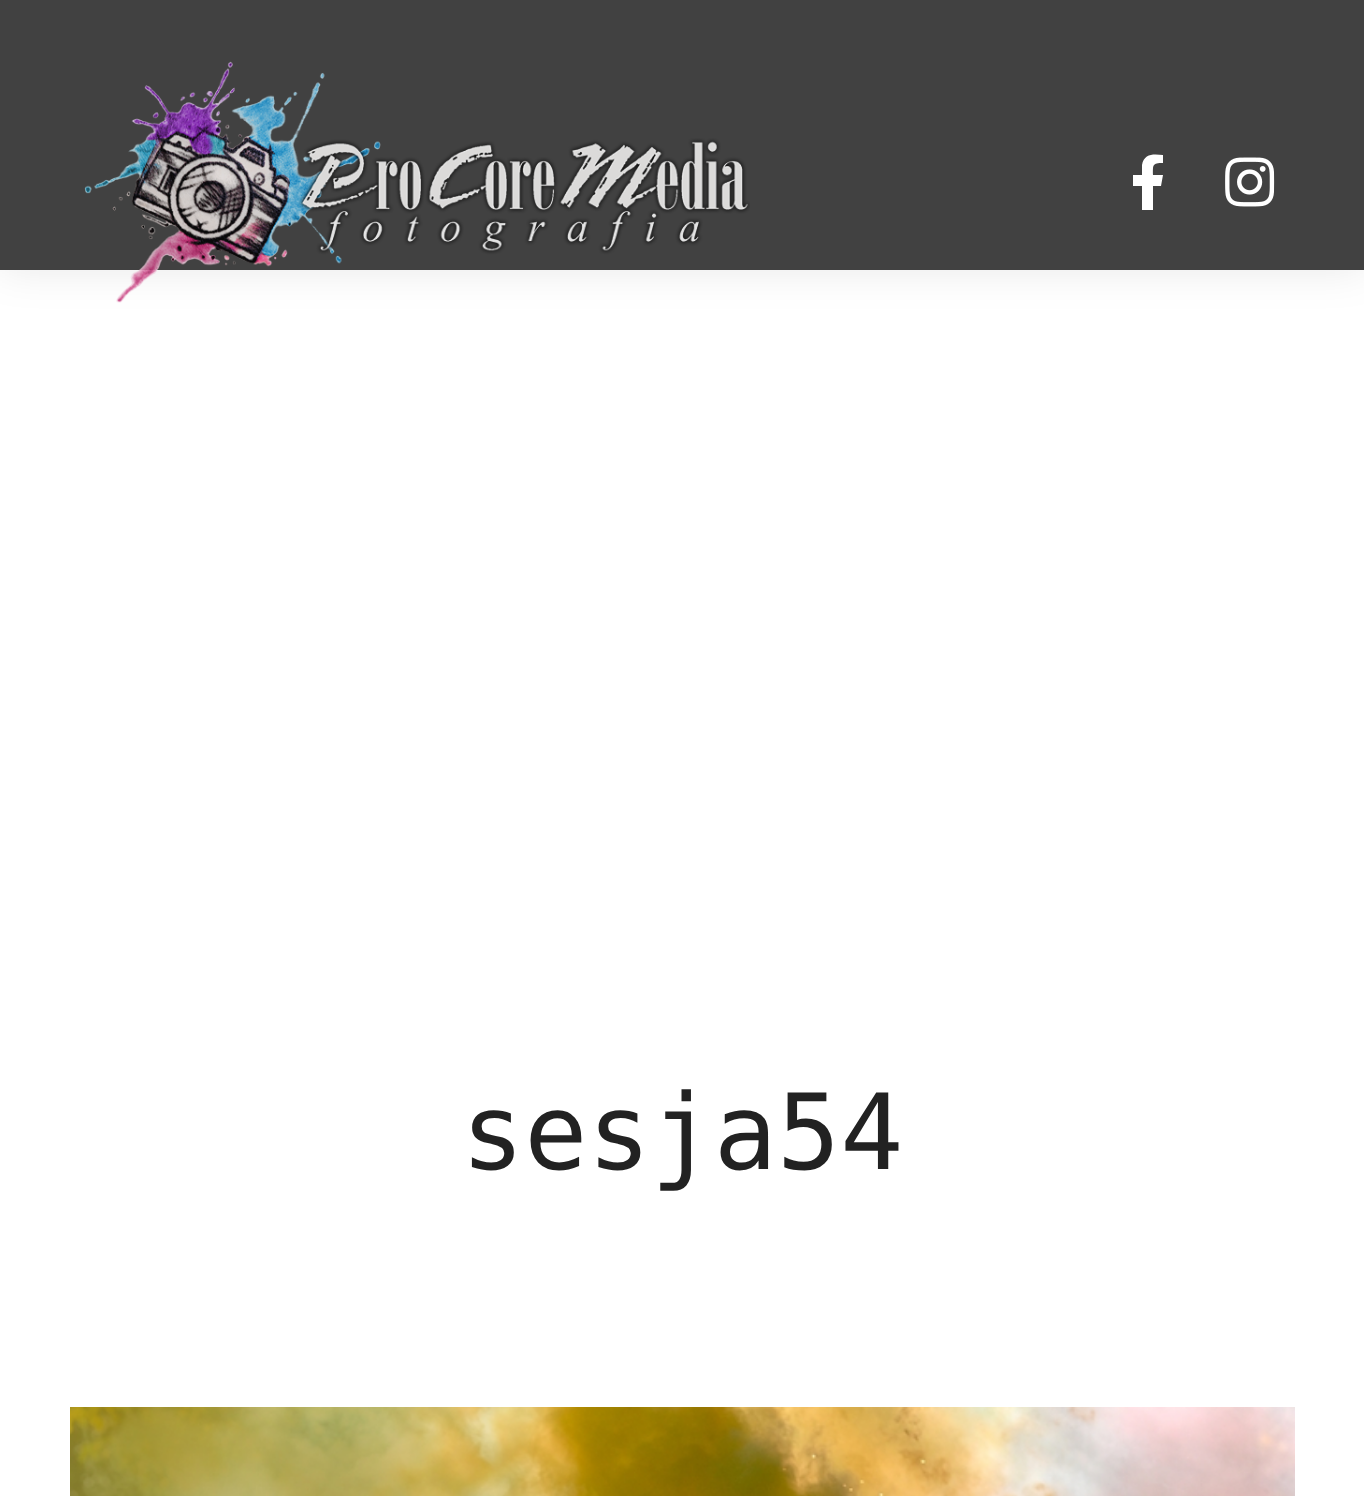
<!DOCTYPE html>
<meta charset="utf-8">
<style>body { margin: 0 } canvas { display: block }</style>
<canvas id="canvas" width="1364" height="1496"></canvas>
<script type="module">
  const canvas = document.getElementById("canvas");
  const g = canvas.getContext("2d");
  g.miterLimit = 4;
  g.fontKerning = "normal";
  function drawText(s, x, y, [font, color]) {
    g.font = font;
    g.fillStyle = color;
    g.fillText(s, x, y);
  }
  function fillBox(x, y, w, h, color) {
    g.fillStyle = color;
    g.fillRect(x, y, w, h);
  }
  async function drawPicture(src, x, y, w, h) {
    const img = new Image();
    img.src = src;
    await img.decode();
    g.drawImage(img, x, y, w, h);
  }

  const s1 = ["105px DejaVu Sans Mono", "#222222"];

  fillBox(0, 0, 1364, 1496, "#FFFFFF");
  g.save();
  g.beginPath();
  g.moveTo(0, 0);
  g.lineTo(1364, 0);
  g.lineTo(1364, 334);
  g.lineTo(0, 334);
  g.closePath();
  g.moveTo(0, 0);
  g.lineTo(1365, 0);
  g.lineTo(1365, 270);
  g.lineTo(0, 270);
  g.closePath();
  g.clip("evenodd");
  g.fillStyle = "rgba(0, 0, 0, 0.09)";
  g.filter = "blur(21px)";
  g.beginPath();
  g.rect(0, 0, 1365, 270);
  g.fill();
  g.filter = "none";
  g.restore();
  fillBox(0, 0, 1364, 270, "rgba(12, 12, 12, 0.78)");
  await drawPicture("pic1.png", 84, 61, 666, 242);
  g.fillStyle = "#FFFFFF";
  g.beginPath();
  g.moveTo(1161, 186);
  g.lineTo(1153, 186);
  g.lineTo(1153, 210);
  g.lineTo(1142, 210);
  g.lineTo(1142, 186);
  g.lineTo(1133, 186);
  g.lineTo(1133, 175);
  g.lineTo(1142, 175);
  g.lineTo(1142, 165);
  g.bezierCurveTo(1144, 153, 1154, 154, 1163, 155);
  g.lineTo(1163, 163);
  g.bezierCurveTo(1152, 163, 1153, 165, 1153, 175);
  g.lineTo(1163, 175);
  g.closePath();
  g.fill();
  await drawPicture("pic2.png", 1225, 157, 50, 50);
  drawText("sesja54", 461, 1169, s1);
  await drawPicture("pic3.png", 70, 1407, 1225, 89);
</script>
